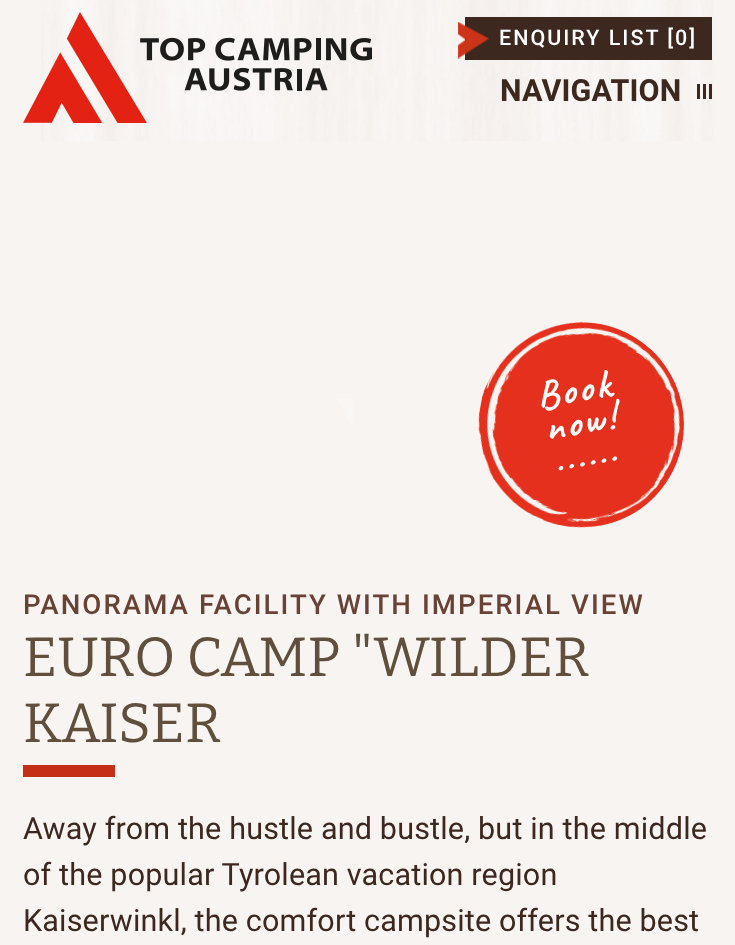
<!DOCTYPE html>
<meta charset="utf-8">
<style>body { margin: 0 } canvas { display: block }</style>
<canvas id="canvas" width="735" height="945"></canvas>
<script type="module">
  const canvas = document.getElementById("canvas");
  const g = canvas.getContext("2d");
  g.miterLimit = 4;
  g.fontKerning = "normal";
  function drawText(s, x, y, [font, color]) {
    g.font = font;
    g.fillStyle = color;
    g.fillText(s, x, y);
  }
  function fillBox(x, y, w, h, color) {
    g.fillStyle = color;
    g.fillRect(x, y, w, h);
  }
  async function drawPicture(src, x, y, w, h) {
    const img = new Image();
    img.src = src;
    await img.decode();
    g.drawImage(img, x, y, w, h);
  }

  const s1 = ["500 21.5px Roboto", "#FFFFFF"];
  const s2 = ["bold 30.5px Roboto", "#3C281E"];
  const s3 = ["500 27.6px Roboto", "#694236"];
  const s4 = ["100 55.1px Bitter", "#5F4F3C"];
  const s5 = ["30.6px Roboto", "#3C281E"];

  fillBox(0, 0, 735, 945, "#F8F4F2");
  await drawPicture("pic1.png", 41, 0, 672, 141);
  await drawPicture("pic2.png", 23, 12, 349, 111);
  fillBox(465, 17, 247, 43, "#3C281E");
  await drawPicture("pic3.png", 458, 22, 31, 37);
  g.letterSpacing = "2px";
  drawText("ENQUIRY LIST [0]", 499, 45, s1);
  g.letterSpacing = "0.15px";
  drawText("NAVIGATION", 500, 101, s2);
  fillBox(697, 84, 3, 15, "#3C281E");
  fillBox(703, 84, 3, 15, "#3C281E");
  fillBox(709, 84, 3, 15, "#3C281E");
  await drawPicture("pic4.png", 337, 399, 16, 27);
  await drawPicture("pic5.png", 478, 322, 206, 206);
  g.letterSpacing = "3px";
  g.font = "bold 40px Caveat";
  g.fillStyle = "#FFFFFF";
  g.save();
  g.translate(539, 409);
  g.rotate(-10 * Math.PI / 180);
  g.fillText("Book", 0, 0);
  g.restore();
  g.save();
  g.translate(547, 441);
  g.rotate(-10 * Math.PI / 180);
  g.fillText("now!", 0, 0);
  g.restore();
  g.save();
  g.translate(556, 473);
  g.rotate(-10 * Math.PI / 180);
  g.fillText("......", 0, 0);
  g.restore();
  g.letterSpacing = "2.05px";
  drawText("PANORAMA FACILITY WITH IMPERIAL VIEW", 23, 614, s3);
  g.letterSpacing = "0.25px";
  drawText("EURO CAMP \"WILDER", 23, 676, s4);
  drawText("KAISER", 23, 742, s4);
  fillBox(23, 765, 92, 12, "#C33015");
  g.letterSpacing = "0.15px";
  drawText("Away from the hustle and bustle, but in the middle", 23, 839, s5);
  drawText("of the popular Tyrolean vacation region", 23, 885, s5);
  drawText("Kaiserwinkl, the comfort campsite offers the best", 23, 931, s5);
</script>
